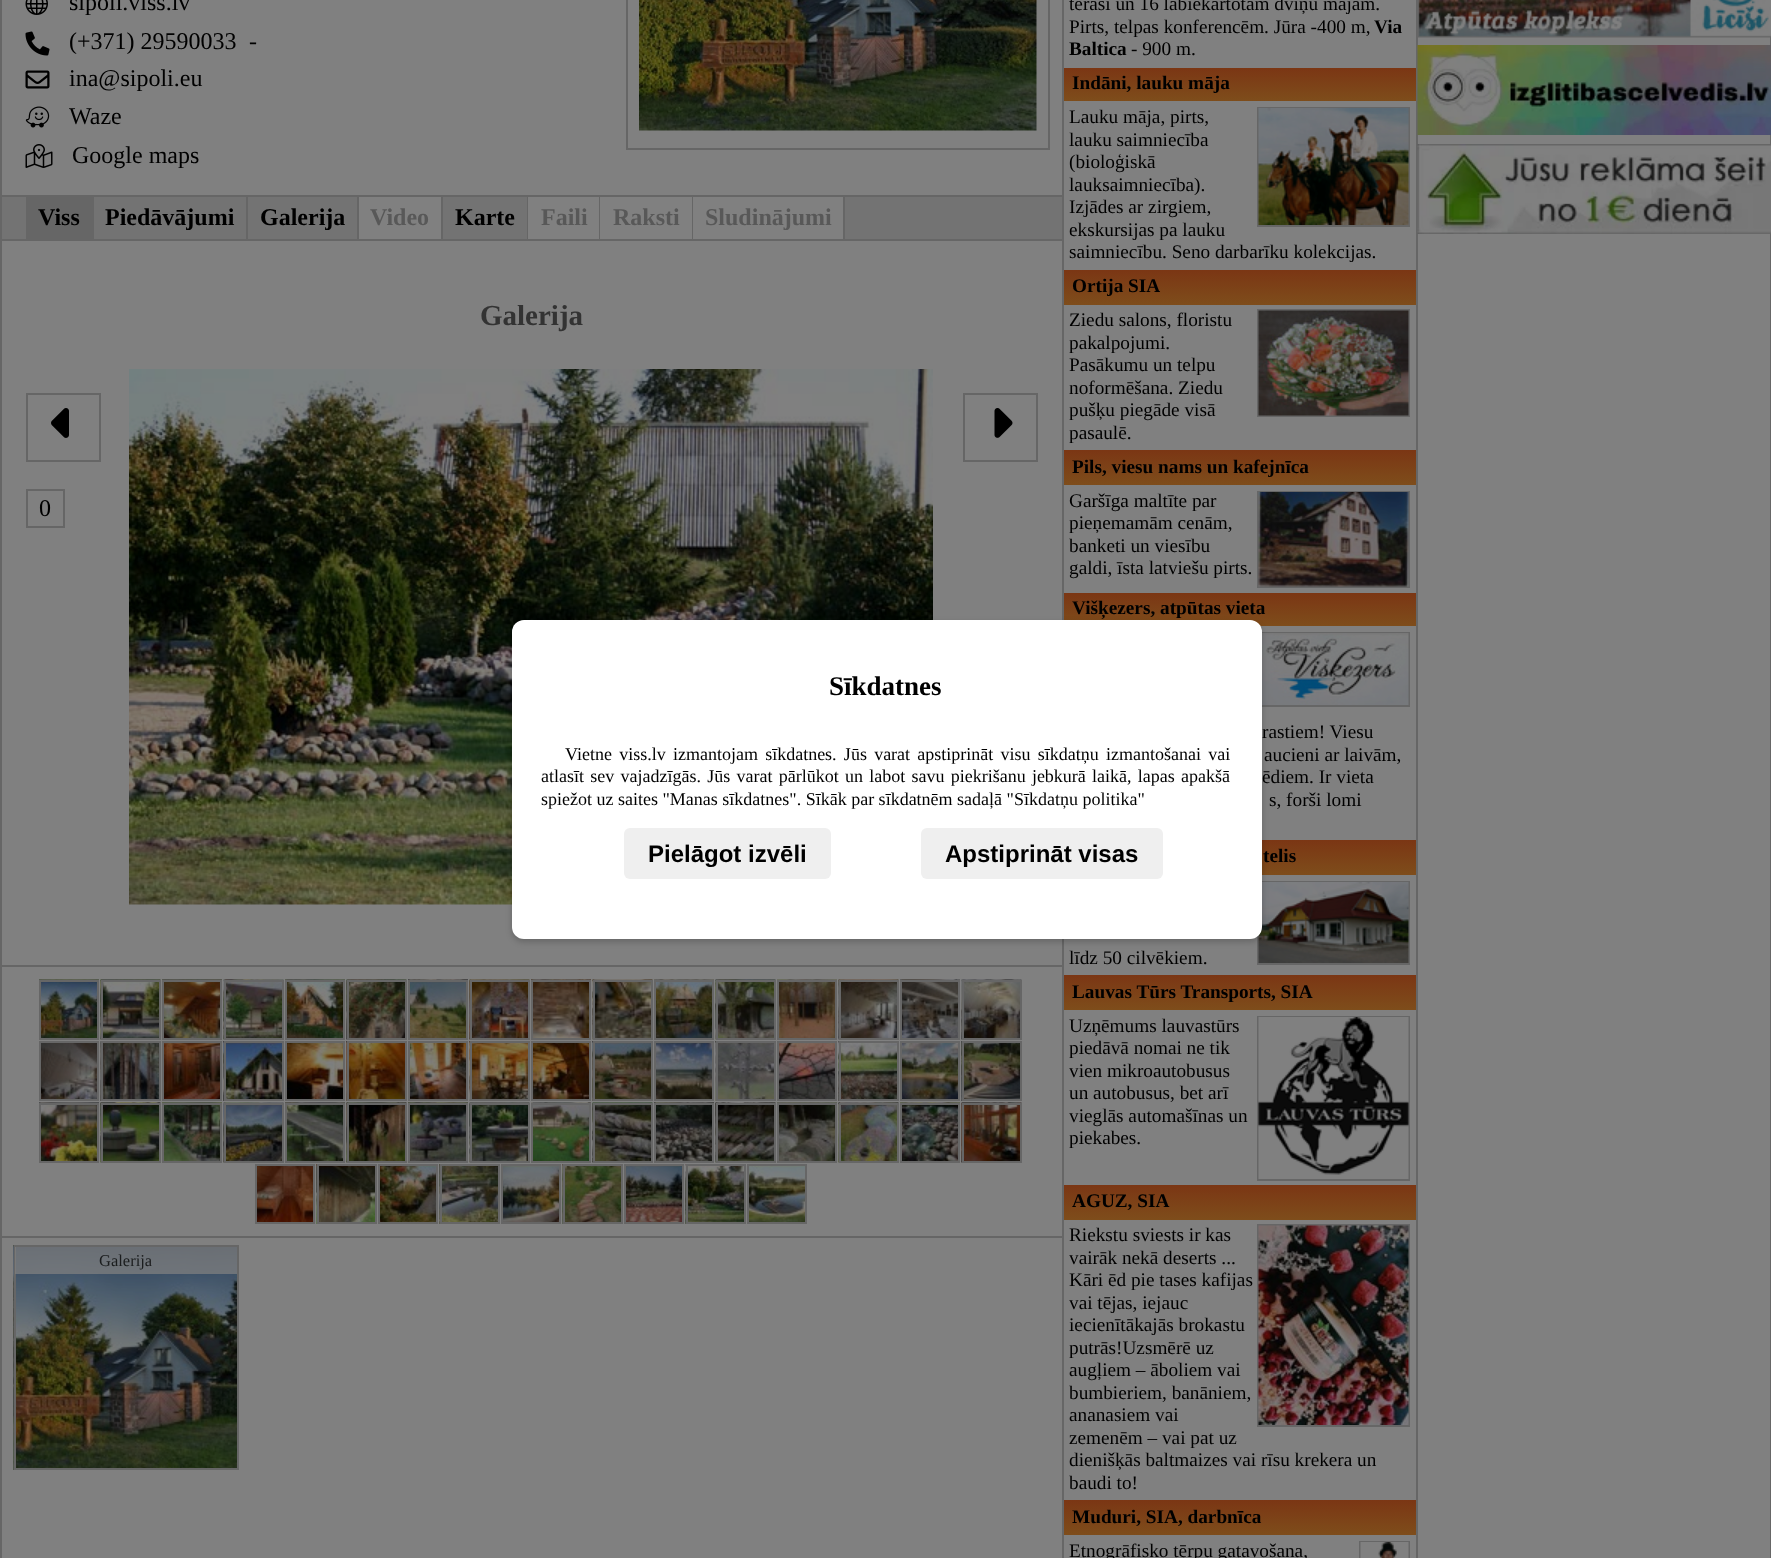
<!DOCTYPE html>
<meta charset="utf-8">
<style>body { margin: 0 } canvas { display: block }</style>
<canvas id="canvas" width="1771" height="1558"></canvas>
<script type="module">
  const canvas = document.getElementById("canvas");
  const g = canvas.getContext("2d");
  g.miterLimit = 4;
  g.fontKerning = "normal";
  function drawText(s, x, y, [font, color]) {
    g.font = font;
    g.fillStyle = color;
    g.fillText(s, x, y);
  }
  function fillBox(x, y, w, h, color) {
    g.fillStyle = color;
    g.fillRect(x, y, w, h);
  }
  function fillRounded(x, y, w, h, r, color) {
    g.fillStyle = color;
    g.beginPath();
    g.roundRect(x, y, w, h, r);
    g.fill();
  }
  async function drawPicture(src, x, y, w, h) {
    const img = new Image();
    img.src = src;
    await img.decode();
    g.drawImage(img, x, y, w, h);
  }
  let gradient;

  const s1 = ["24px Liberation Serif", "#000000"];
  const s2 = ["bold 24px Liberation Serif", "#000000"];
  const s3 = ["bold 24px Liberation Serif", "#585858"];
  const s4 = ["bold 29px Liberation Serif", "#333333"];
  const s5 = ["16.5px Liberation Serif", "#1B1D1E"];
  const s6 = ["19.25px Liberation Serif", "#000000"];
  const s7 = ["bold 19.25px Liberation Serif", "#000000"];
  const s8 = ["bold 27px Liberation Serif", "#000000"];
  const s9 = ["18px Liberation Serif", "#000000"];
  const s10 = ["bold 24px Liberation Sans", "#000000"];

  fillBox(0, 0, 1771, 1558, "#808080");
  fillBox(1062, 0, 2, 1558, "#666666");
  fillBox(0, 0, 2, 1558, "#666666");
  await drawPicture("pic1.png", 25, 0, 23, 15);
  drawText("sipoli.viss.lv", 69, 10, s1);
  await drawPicture("pic2.png", 25, 31, 25, 25);
  drawText("(+371) 29590033", 69, 49, s1);
  drawText("-", 249, 49, s1);
  await drawPicture("pic3.png", 25, 70, 25, 19);
  drawText("ina@sipoli.eu", 69, 86, s1);
  await drawPicture("pic4.png", 25, 106, 25, 22);
  drawText("Waze", 69, 124, s1);
  await drawPicture("pic5.png", 25, 144, 28, 24);
  drawText("Google maps", 72, 163, s1);
  g.strokeStyle = "#666666";
  g.lineWidth = 2;
  g.strokeRect(627, -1, 422, 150);
  await drawPicture("pic6.png", 639, 0, 398, 131);
  fillBox(2, 197, 1060, 42, "#737373");
  fillBox(2, 195, 1060, 2, "#666666");
  fillBox(2, 239, 1060, 2, "#666666");
  fillBox(26, 197, 68, 42, "#666666");
  drawText("Viss", 38, 225, s2);
  fillBox(246, 197, 2, 42, "#666666");
  drawText("Piedāvājumi", 105, 225, s2);
  fillBox(357, 197, 2, 42, "#666666");
  drawText("Galerija", 260, 225, s2);
  fillBox(359, 197, 82, 42, "#808080");
  fillBox(441, 197, 2, 42, "#666666");
  drawText("Video", 370, 225, s3);
  fillBox(527, 197, 1, 42, "#666666");
  drawText("Karte", 455, 225, s2);
  fillBox(528, 197, 71, 42, "#808080");
  fillBox(599, 197, 1, 42, "#666666");
  drawText("Faili", 541, 225, s3);
  fillBox(600, 197, 92, 42, "#808080");
  fillBox(692, 197, 1, 42, "#666666");
  drawText("Raksti", 613, 225, s3);
  fillBox(693, 197, 150, 42, "#808080");
  fillBox(843, 197, 2, 42, "#666666");
  drawText("Sludinājumi", 705, 225, s3);
  drawText("Galerija", 480, 325, s4);
  fillBox(2, 965, 1060, 2, "#666666");
  g.strokeRect(27, 394, 73, 67);
  await drawPicture("pic7.png", 51, 408, 18, 30);
  await drawPicture("pic8.png", 129, 369, 804, 536);
  g.strokeRect(964, 394, 73, 67);
  await drawPicture("pic9.png", 994, 408, 19, 30);
  g.strokeRect(27, 490, 37, 37);
  drawText("0", 39, 516, s1);
  fillBox(2, 1236, 1060, 2, "#666666");
  await drawPicture("pic10.png", 39, 979, 60, 59);
  g.strokeRect(40, 981, 58, 58);
  await drawPicture("pic11.png", 100, 979, 61, 61);
  g.strokeRect(102, 981, 58, 58);
  await drawPicture("pic12.png", 162, 979, 60, 59);
  g.strokeRect(163, 981, 58, 58);
  await drawPicture("pic13.png", 223, 979, 61, 61);
  g.strokeRect(225, 981, 58, 58);
  await drawPicture("pic14.png", 285, 979, 60, 59);
  g.strokeRect(286, 981, 58, 58);
  await drawPicture("pic15.png", 346, 979, 61, 61);
  g.strokeRect(348, 981, 58, 58);
  await drawPicture("pic16.png", 408, 979, 60, 59);
  g.strokeRect(409, 981, 58, 58);
  await drawPicture("pic17.png", 469, 979, 61, 61);
  g.strokeRect(471, 981, 58, 58);
  await drawPicture("pic18.png", 531, 979, 60, 59);
  g.strokeRect(532, 981, 58, 58);
  await drawPicture("pic19.png", 592, 979, 61, 61);
  g.strokeRect(594, 981, 58, 58);
  await drawPicture("pic20.png", 654, 979, 60, 59);
  g.strokeRect(655, 981, 58, 58);
  await drawPicture("pic21.png", 715, 979, 61, 61);
  g.strokeRect(717, 981, 58, 58);
  await drawPicture("pic22.png", 777, 979, 60, 59);
  g.strokeRect(778, 981, 58, 58);
  await drawPicture("pic23.png", 838, 979, 61, 61);
  g.strokeRect(840, 981, 58, 58);
  await drawPicture("pic24.png", 900, 979, 60, 59);
  g.strokeRect(901, 981, 58, 58);
  await drawPicture("pic25.png", 961, 979, 61, 61);
  g.strokeRect(963, 981, 58, 58);
  await drawPicture("pic26.png", 41, 1043, 56, 56);
  g.strokeRect(40, 1042, 58, 58);
  await drawPicture("pic27.png", 100, 1041, 59, 60);
  g.strokeRect(102, 1042, 58, 58);
  await drawPicture("pic28.png", 164, 1043, 56, 56);
  g.strokeRect(163, 1042, 58, 58);
  await drawPicture("pic29.png", 223, 1041, 59, 60);
  g.strokeRect(225, 1042, 58, 58);
  await drawPicture("pic30.png", 287, 1043, 56, 56);
  g.strokeRect(286, 1042, 58, 58);
  await drawPicture("pic31.png", 346, 1041, 59, 60);
  g.strokeRect(348, 1042, 58, 58);
  await drawPicture("pic32.png", 410, 1043, 56, 56);
  g.strokeRect(409, 1042, 58, 58);
  await drawPicture("pic33.png", 469, 1041, 59, 60);
  g.strokeRect(471, 1042, 58, 58);
  await drawPicture("pic34.png", 533, 1043, 56, 56);
  g.strokeRect(532, 1042, 58, 58);
  await drawPicture("pic35.png", 592, 1041, 59, 60);
  g.strokeRect(594, 1042, 58, 58);
  await drawPicture("pic36.png", 656, 1043, 56, 56);
  g.strokeRect(655, 1042, 58, 58);
  await drawPicture("pic37.png", 715, 1041, 59, 60);
  g.strokeRect(717, 1042, 58, 58);
  await drawPicture("pic38.png", 779, 1043, 56, 56);
  g.strokeRect(778, 1042, 58, 58);
  await drawPicture("pic39.png", 838, 1041, 59, 60);
  g.strokeRect(840, 1042, 58, 58);
  await drawPicture("pic40.png", 902, 1043, 56, 56);
  g.strokeRect(901, 1042, 58, 58);
  await drawPicture("pic41.png", 961, 1041, 59, 60);
  g.strokeRect(963, 1042, 58, 58);
  await drawPicture("pic42.png", 39, 1102, 60, 59);
  g.strokeRect(40, 1104, 58, 58);
  await drawPicture("pic43.png", 100, 1102, 61, 61);
  g.strokeRect(102, 1104, 58, 58);
  await drawPicture("pic44.png", 162, 1102, 60, 59);
  g.strokeRect(163, 1104, 58, 58);
  await drawPicture("pic45.png", 223, 1102, 61, 61);
  g.strokeRect(225, 1104, 58, 58);
  await drawPicture("pic46.png", 285, 1102, 60, 59);
  g.strokeRect(286, 1104, 58, 58);
  await drawPicture("pic47.png", 346, 1102, 61, 61);
  g.strokeRect(348, 1104, 58, 58);
  await drawPicture("pic48.png", 408, 1102, 60, 59);
  g.strokeRect(409, 1104, 58, 58);
  await drawPicture("pic49.png", 469, 1102, 61, 61);
  g.strokeRect(471, 1104, 58, 58);
  await drawPicture("pic50.png", 531, 1102, 60, 59);
  g.strokeRect(532, 1104, 58, 58);
  await drawPicture("pic51.png", 592, 1102, 61, 61);
  g.strokeRect(594, 1104, 58, 58);
  await drawPicture("pic52.png", 654, 1102, 60, 59);
  g.strokeRect(655, 1104, 58, 58);
  await drawPicture("pic53.png", 715, 1102, 61, 61);
  g.strokeRect(717, 1104, 58, 58);
  await drawPicture("pic54.png", 777, 1102, 60, 59);
  g.strokeRect(778, 1104, 58, 58);
  await drawPicture("pic55.png", 838, 1102, 61, 61);
  g.strokeRect(840, 1104, 58, 58);
  await drawPicture("pic56.png", 900, 1102, 60, 59);
  g.strokeRect(901, 1104, 58, 58);
  await drawPicture("pic57.png", 961, 1102, 61, 61);
  g.strokeRect(963, 1104, 58, 58);
  await drawPicture("pic58.png", 257, 1166, 56, 56);
  g.strokeRect(256, 1165, 58, 58);
  await drawPicture("pic59.png", 316, 1164, 59, 60);
  g.strokeRect(318, 1165, 58, 58);
  await drawPicture("pic60.png", 380, 1166, 56, 56);
  g.strokeRect(379, 1165, 58, 58);
  await drawPicture("pic61.png", 439, 1164, 59, 60);
  g.strokeRect(441, 1165, 58, 58);
  await drawPicture("pic62.png", 503, 1166, 56, 56);
  g.strokeRect(502, 1165, 58, 58);
  await drawPicture("pic63.png", 562, 1164, 59, 60);
  g.strokeRect(564, 1165, 58, 58);
  await drawPicture("pic64.png", 626, 1166, 56, 56);
  g.strokeRect(625, 1165, 58, 58);
  await drawPicture("pic65.png", 685, 1164, 59, 60);
  g.strokeRect(687, 1165, 58, 58);
  await drawPicture("pic66.png", 749, 1166, 56, 56);
  g.strokeRect(748, 1165, 58, 58);
  await drawPicture("pic67.png", 13, 1245, 224, 225);
  g.strokeRect(15, 1246, 223, 223);
  fillBox(15, 1247, 222, 27, "rgba(128, 128, 128, 0.75)");
  drawText("Galerija", 99, 1266, s5);
  fillBox(1416, 0, 2, 1558, "#666666");
  drawText("terasi un 16 labiekārtotām dvīņu mājām.", 1069, 10, s6);
  drawText("Pirts, telpas konferencēm. Jūra -400 m,", 1069, 33, s6);
  drawText("Via", 1374, 33, s7);
  drawText("Baltica", 1069, 55, s7);
  drawText("- 900 m.", 1131, 55, s6);
  gradient = g.createLinearGradient(1240, 101, 1240, 68);
  gradient.addColorStop(0, "#7E4D1B");
  gradient.addColorStop(1, "#7B3614");
  g.fillStyle = gradient;
  g.fillRect(1064, 68, 352, 33);
  drawText("Indāni, lauku māja", 1072, 89, s7);
  drawText("Lauku māja, pirts,", 1069, 123, s6);
  g.strokeRect(1258, 108, 151, 118);
  await drawPicture("pic68.png", 1258, 108, 151, 117);
  drawText("lauku saimniecība", 1069, 146, s6);
  drawText("(bioloģiskā", 1069, 168, s6);
  drawText("lauksaimniecība).", 1069, 191, s6);
  drawText("Izjādes ar zirgiem,", 1069, 213, s6);
  drawText("ekskursijas pa lauku", 1069, 236, s6);
  drawText("saimniecību. Seno darbarīku kolekcijas.", 1069, 258, s6);
  gradient = g.createLinearGradient(1240, 305, 1240, 270);
  gradient.addColorStop(0, "#7E4D1B");
  gradient.addColorStop(1, "#7B3614");
  g.fillStyle = gradient;
  g.fillRect(1064, 270, 352, 35);
  drawText("Ortija SIA", 1072, 292, s7);
  drawText("Ziedu salons, floristu", 1069, 326, s6);
  g.strokeRect(1258, 310, 151, 106);
  await drawPicture("pic69.png", 1258, 310, 151, 106);
  drawText("pakalpojumi.", 1069, 349, s6);
  drawText("Pasākumu un telpu", 1069, 371, s6);
  drawText("noformēšana. Ziedu", 1069, 394, s6);
  drawText("pušķu piegāde visā", 1069, 416, s6);
  drawText("pasaulē.", 1069, 439, s6);
  gradient = g.createLinearGradient(1240, 485, 1240, 450);
  gradient.addColorStop(0, "#7E4D1B");
  gradient.addColorStop(1, "#7B3614");
  g.fillStyle = gradient;
  g.fillRect(1064, 450, 352, 35);
  drawText("Pils, viesu nams un kafejnīca", 1072, 473, s7);
  drawText("Garšīga maltīte par", 1069, 507, s6);
  g.strokeRect(1258, 492, 151, 95);
  await drawPicture("pic70.png", 1258, 492, 151, 95);
  drawText("pieņemamām cenām,", 1069, 529, s6);
  drawText("banketi un viesību", 1069, 552, s6);
  drawText("galdi, īsta latviešu pirts.", 1069, 574, s6);
  gradient = g.createLinearGradient(1240, 626, 1240, 593);
  gradient.addColorStop(0, "#7E4D1B");
  gradient.addColorStop(1, "#7B3614");
  g.fillStyle = gradient;
  g.fillRect(1064, 593, 352, 33);
  drawText("Višķezers, atpūtas vieta", 1072, 614, s7);
  g.strokeRect(1258, 633, 151, 73);
  await drawPicture("pic71.png", 1262, 633, 147, 72);
  drawText("rastiem! Viesu", 1262, 738, s6);
  drawText("aucieni ar laivām,", 1264, 761, s6);
  drawText("ēdiem. Ir vieta", 1262, 783, s6);
  drawText("s, forši lomi", 1269, 806, s6);
  gradient = g.createLinearGradient(1240, 875, 1240, 840);
  gradient.addColorStop(0, "#7E4D1B");
  gradient.addColorStop(1, "#7B3614");
  g.fillStyle = gradient;
  g.fillRect(1262, 840, 154, 35);
  drawText("telis", 1263, 862, s7);
  drawText("līdz 50 cilvēkiem.", 1069, 964, s6);
  g.strokeRect(1258, 882, 151, 82);
  await drawPicture("pic72.png", 1258, 882, 151, 81);
  gradient = g.createLinearGradient(1240, 1010, 1240, 975);
  gradient.addColorStop(0, "#7E4D1B");
  gradient.addColorStop(1, "#7B3614");
  g.fillStyle = gradient;
  g.fillRect(1064, 975, 352, 35);
  drawText("Lauvas Tūrs Transports, SIA", 1072, 998, s7);
  drawText("Uzņēmums lauvastūrs", 1069, 1032, s6);
  g.strokeRect(1258, 1017, 151, 163);
  await drawPicture("pic73.png", 1258, 1017, 151, 162);
  drawText("piedāvā nomai ne tik", 1069, 1054, s6);
  drawText("vien mikroautobusus", 1069, 1077, s6);
  drawText("un autobusus, bet arī", 1069, 1099, s6);
  drawText("vieglās automašīnas un", 1069, 1122, s6);
  drawText("piekabes.", 1069, 1144, s6);
  gradient = g.createLinearGradient(1240, 1220, 1240, 1185);
  gradient.addColorStop(0, "#7E4D1B");
  gradient.addColorStop(1, "#7B3614");
  g.fillStyle = gradient;
  g.fillRect(1064, 1185, 352, 35);
  drawText("AGUZ, SIA", 1072, 1207, s7);
  drawText("Riekstu sviests ir kas", 1069, 1241, s6);
  g.strokeRect(1258, 1225, 151, 201);
  await drawPicture("pic74.png", 1258, 1225, 151, 200);
  drawText("vairāk nekā deserts ...", 1069, 1264, s6);
  drawText("Kāri ēd pie tases kafijas", 1069, 1286, s6);
  drawText("vai tējas, iejauc", 1069, 1309, s6);
  drawText("iecienītākajās brokastu", 1069, 1331, s6);
  drawText("putrās!Uzsmērē uz", 1069, 1354, s6);
  drawText("augļiem – āboliem vai", 1069, 1376, s6);
  drawText("bumbieriem, banāniem,", 1069, 1399, s6);
  drawText("ananasiem vai", 1069, 1421, s6);
  drawText("zemenēm – vai pat uz", 1069, 1444, s6);
  drawText("dienišķās baltmaizes vai rīsu krekera un", 1069, 1466, s6);
  drawText("baudi to!", 1069, 1489, s6);
  gradient = g.createLinearGradient(1240, 1535, 1240, 1500);
  gradient.addColorStop(0, "#7E4D1B");
  gradient.addColorStop(1, "#7B3614");
  g.fillStyle = gradient;
  g.fillRect(1064, 1500, 352, 35);
  drawText("Muduri, SIA, darbnīca", 1072, 1523, s7);
  drawText("Etnogrāfisko tērpu gatavošana,", 1069, 1557, s6);
  g.strokeRect(1360, 1542, 49, 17);
  await drawPicture("pic75.png", 1360, 1542, 49, 16);
  fillBox(1770, 37, 1, 1521, "#666666");
  await drawPicture("pic76.png", 1418, 0, 353, 38);
  await drawPicture("pic77.png", 1417, 45, 354, 90);
  await drawPicture("pic78.png", 1417, 144, 354, 90);
  g.fillStyle = "rgba(0, 0, 0, 0.2)";
  g.filter = "blur(3px)";
  g.beginPath();
  g.roundRect(512, 623, 750, 319, 12);
  g.fill();
  g.filter = "none";
  fillRounded(512, 620, 750, 319, 12, "#FFFFFF");
  drawText("Sīkdatnes", 829, 695, s8);
  g.wordSpacing = "2.75px";
  drawText("Vietne viss.lv izmantojam sīkdatnes. Jūs varat apstiprināt visu sīkdatņu izmantošanai vai", 565, 760, s9);
  g.wordSpacing = "1.75px";
  drawText("atlasīt sev vajadzīgās. Jūs varat pārlūkot un labot savu piekrišanu jebkurā laikā, lapas apakšā", 541, 782, s9);
  g.wordSpacing = "0px";
  drawText("spiežot uz saites \"Manas sīkdatnes\". Sīkāk par sīkdatnēm sadaļā \"Sīkdatņu politika\"", 541, 805, s9);
  fillRounded(624, 828, 207, 51, 6, "#EFEFEF");
  drawText("Pielāgot izvēli", 648, 862, s10);
  fillRounded(921, 828, 242, 51, 6, "#EFEFEF");
  drawText("Apstiprināt visas", 945, 862, s10);
</script>
